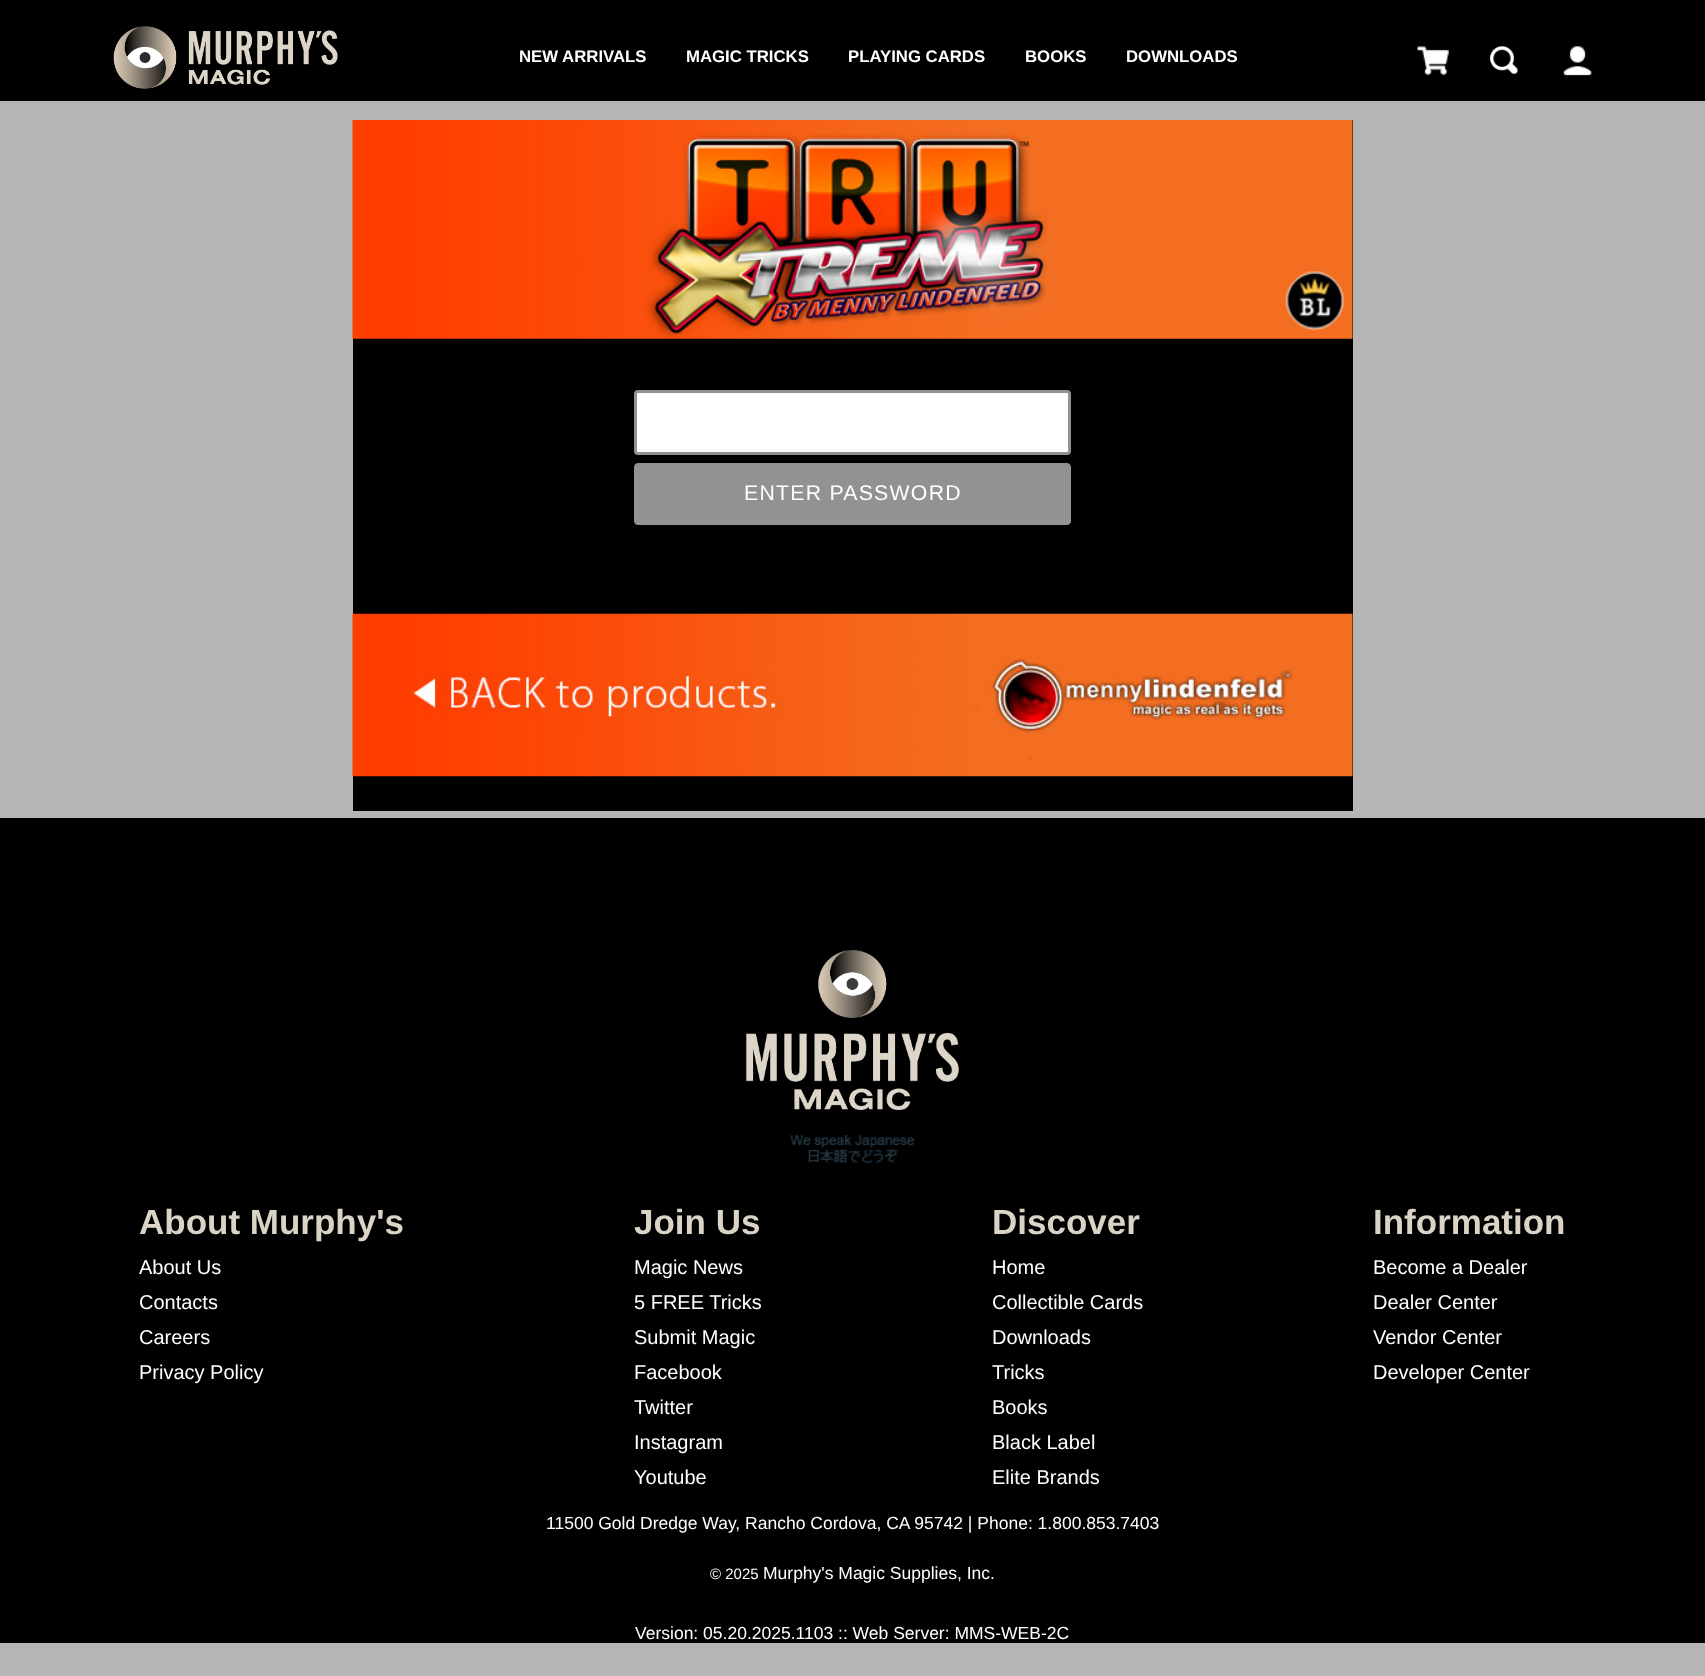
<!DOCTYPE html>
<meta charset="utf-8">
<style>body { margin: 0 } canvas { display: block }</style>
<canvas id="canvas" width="1705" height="1676"></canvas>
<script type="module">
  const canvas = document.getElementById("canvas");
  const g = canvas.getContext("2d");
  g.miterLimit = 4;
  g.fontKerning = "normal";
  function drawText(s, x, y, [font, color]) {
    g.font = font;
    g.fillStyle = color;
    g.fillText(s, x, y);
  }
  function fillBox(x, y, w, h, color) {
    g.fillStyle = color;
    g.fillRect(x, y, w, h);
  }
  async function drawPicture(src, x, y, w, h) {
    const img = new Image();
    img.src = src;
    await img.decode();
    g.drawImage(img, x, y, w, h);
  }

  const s1 = ["bold 16.75px Liberation Sans", "#FFFFFF"];
  const s2 = ["21.25px Liberation Sans", "#FFFFFF"];
  const s3 = ["bold 35px Liberation Sans", "#DAD3C6"];
  const s4 = ["20px Liberation Sans", "#FFFFFF"];
  const s5 = ["17.5px Liberation Sans", "#FFFFFF"];
  const s6 = ["15px Liberation Sans", "#FFFFFF"];

  fillBox(0, 0, 1705, 1676, "#B5B5B5");
  fillBox(0, 0, 1705, 101, "#000000");
  await drawPicture("pic1.png", 113, 26, 225, 63);
  drawText("NEW ARRIVALS", 519, 62, s1);
  drawText("MAGIC TRICKS", 686, 62, s1);
  drawText("PLAYING CARDS", 848, 62, s1);
  drawText("BOOKS", 1025, 62, s1);
  drawText("DOWNLOADS", 1126, 62, s1);
  await drawPicture("pic2.png", 1417, 46, 32, 30);
  await drawPicture("pic3.png", 1490, 46, 28, 28);
  await drawPicture("pic4.png", 1563, 46, 29, 30);
  fillBox(353, 120, 1000, 691, "#000000");
  await drawPicture("pic5.png", 352, 120, 1001, 219);
  g.fillStyle = "#FFFFFF";
  g.beginPath();
  g.roundRect(635.5, 391.5, 434, 62, 2.5);
  g.fill();
  g.strokeStyle = "#929292";
  g.lineWidth = 3;
  g.stroke();
  g.fillStyle = "#929292";
  g.beginPath();
  g.roundRect(634.5, 463.5, 436, 61, 3.5);
  g.fill();
  g.lineWidth = 1;
  g.stroke();
  g.letterSpacing = "1.25px";
  drawText("ENTER PASSWORD", 744, 500, s2);
  await drawPicture("pic6.png", 352, 613, 1001, 164);
  fillBox(0, 818, 1705, 825, "#000000");
  await drawPicture("pic7.png", 746, 950, 213, 160);
  await drawPicture("pic8.png", 790, 1135, 125, 28);
  g.letterSpacing = "0px";
  drawText("About Murphy's", 139, 1234, s3);
  drawText("About Us", 139, 1274, s4);
  drawText("Contacts", 139, 1309, s4);
  drawText("Careers", 139, 1344, s4);
  drawText("Privacy Policy", 139, 1379, s4);
  drawText("Join Us", 634, 1234, s3);
  drawText("Magic News", 634, 1274, s4);
  drawText("5 FREE Tricks", 634, 1309, s4);
  drawText("Submit Magic", 634, 1344, s4);
  drawText("Facebook", 634, 1379, s4);
  drawText("Twitter", 634, 1414, s4);
  drawText("Instagram", 634, 1449, s4);
  drawText("Youtube", 634, 1484, s4);
  drawText("Discover", 992, 1234, s3);
  drawText("Home", 992, 1274, s4);
  drawText("Collectible Cards", 992, 1309, s4);
  drawText("Downloads", 992, 1344, s4);
  drawText("Tricks", 992, 1379, s4);
  drawText("Books", 992, 1414, s4);
  drawText("Black Label", 992, 1449, s4);
  drawText("Elite Brands", 992, 1484, s4);
  drawText("Information", 1373, 1234, s3);
  drawText("Become a Dealer", 1373, 1274, s4);
  drawText("Dealer Center", 1373, 1309, s4);
  drawText("Vendor Center", 1373, 1344, s4);
  drawText("Developer Center", 1373, 1379, s4);
  drawText("11500 Gold Dredge Way, Rancho Cordova, CA 95742 | Phone: 1.800.853.7403", 546, 1529, s5);
  drawText("© 2025", 710, 1579, s6);
  drawText("Murphy's Magic Supplies, Inc.", 763, 1579, s5);
  drawText("Version: 05.20.2025.1103 :: Web Server: MMS-WEB-2C", 635, 1639, s5);
</script>
